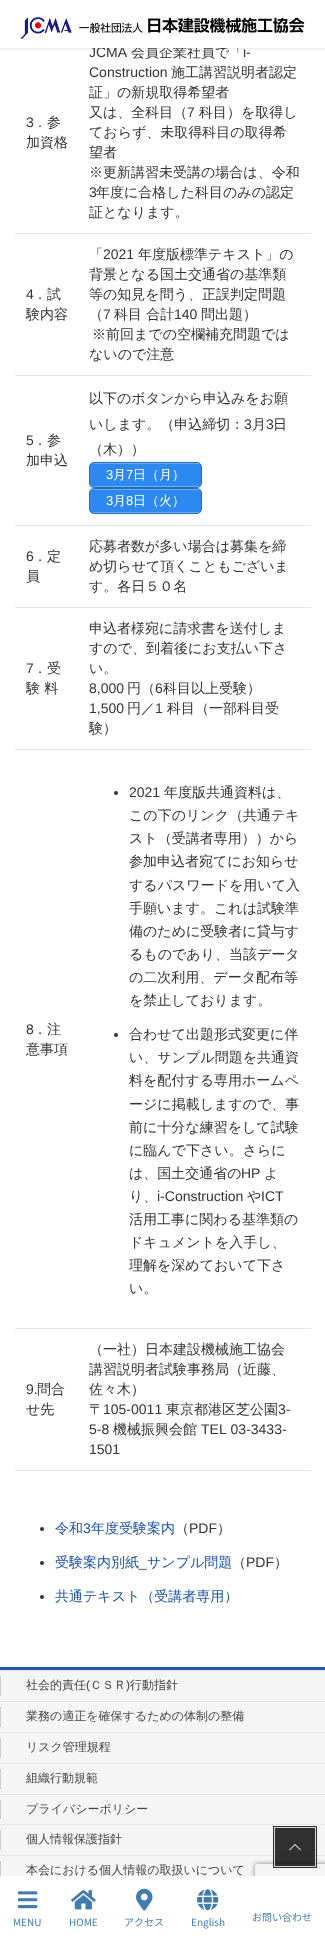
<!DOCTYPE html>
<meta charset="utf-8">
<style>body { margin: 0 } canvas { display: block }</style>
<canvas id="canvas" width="325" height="1938"></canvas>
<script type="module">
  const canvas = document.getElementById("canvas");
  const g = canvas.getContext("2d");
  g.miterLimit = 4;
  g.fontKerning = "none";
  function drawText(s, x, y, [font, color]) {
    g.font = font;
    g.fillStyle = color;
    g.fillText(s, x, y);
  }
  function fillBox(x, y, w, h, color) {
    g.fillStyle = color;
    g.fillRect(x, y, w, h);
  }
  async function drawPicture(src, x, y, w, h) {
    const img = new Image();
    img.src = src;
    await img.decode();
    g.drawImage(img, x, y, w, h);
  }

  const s1 = ["14px Liberation Sans", "#333333"];
  const s2 = ["500 14px WenQuanYi Zen Hei", "#333333"];
  const s3 = ["13px Liberation Sans", "#FFFFFF"];
  const s4 = ["500 13px WenQuanYi Zen Hei", "#FFFFFF"];
  const s5 = ["500 14px WenQuanYi Zen Hei", "#1C53A5"];
  const s6 = ["14px Liberation Sans", "#1C53A5"];
  const s7 = ["500 12px WenQuanYi Zen Hei", "#464646"];
  const s8 = ["12px Liberation Sans", "#464646"];
  const s9 = ["10px Noto Sans JP", "#437CAD"];

  fillBox(0, 0, 325, 1938, "#FFFFFF");
  g.fillStyle = "rgba(0, 0, 0, 0.1)";
  g.filter = "blur(1.5px)";
  g.beginPath();
  g.rect(0, 1, 325, 48);
  g.fill();
  g.filter = "none";
  drawText("JCMA", 89, 57, s1);
  drawText("会員企業社員で「", 131, 57, s2);
  drawText("i-", 243, 57, s1);
  fillBox(0, 0, 325, 48, "#FFFFFF");
  await drawPicture("pic1.png", 20, 17, 285, 22);
  drawText("3", 26, 127, s1);
  drawText("．参", 33, 127, s2);
  drawText("加資格", 26, 147, s2);
  fillBox(15, 233, 296, 1, "#E5E5E5");
  drawText("Construction", 89, 77, s1);
  drawText("施工講習説明者認定", 171, 77, s2);
  drawText("証」の新規取得希望者", 89, 97, s2);
  drawText("又は、全科目（", 89, 117, s2);
  drawText("7", 187, 117, s1);
  drawText("科目）を取得し", 199, 117, s2);
  drawText("ておらず、未取得科目の取得希", 89, 137, s2);
  drawText("望者", 89, 157, s2);
  drawText("※更新講習未受講の場合は、令和", 89, 177, s2);
  drawText("3", 89, 197, s1);
  drawText("年度に合格した科目のみの認定", 96, 197, s2);
  drawText("証となります。", 89, 217, s2);
  drawText("4", 26, 299, s1);
  drawText("．試", 33, 299, s2);
  drawText("験内容", 26, 319, s2);
  fillBox(15, 375, 296, 1, "#E5E5E5");
  drawText("「", 89, 259, s2);
  drawText("2021", 103, 259, s1);
  drawText("年度版標準テキスト」の", 138, 259, s2);
  drawText("背景となる国土交通省の基準類", 89, 279, s2);
  drawText("等の知見を問う、正誤判定問題", 89, 299, s2);
  drawText("（", 89, 319, s2);
  drawText("7", 103, 319, s1);
  drawText("科目 合計", 114, 319, s2);
  drawText("140", 174, 319, s1);
  drawText("問出題）", 201, 319, s2);
  drawText("※前回までの空欄補充問題では", 92, 339, s2);
  drawText("ないので注意", 89, 359, s2);
  drawText("5", 26, 445, s1);
  drawText("．参", 33, 445, s2);
  drawText("加申込", 26, 465, s2);
  fillBox(15, 525, 296, 1, "#E5E5E5");
  drawText("以下のボタンから申込みをお願", 89, 403, s2);
  drawText("いします。（申込締切：", 89, 429, s2);
  drawText("3", 244, 429, s1);
  drawText("月", 252, 429, s2);
  drawText("3", 266, 429, s1);
  drawText("日", 273, 429, s2);
  drawText("（木））", 89, 454, s2);
  g.fillStyle = "#2D89EF";
  g.beginPath();
  g.roundRect(89.5, 462.5, 112, 25, 4.5);
  g.fill();
  g.strokeStyle = "#246EC0";
  g.stroke();
  fillBox(93, 463, 106, 1, "#6CADF4");
  fillBox(93, 486, 106, 1, "#6CADF4");
  drawText("3", 106, 479, s3);
  drawText("月", 113, 479, s4);
  drawText("7", 126, 479, s3);
  drawText("日（月）", 133, 479, s4);
  g.fillStyle = "#2D89EF";
  g.beginPath();
  g.roundRect(89.5, 488.5, 112, 25, 4.5);
  g.fill();
  g.stroke();
  fillBox(93, 489, 106, 1, "#6CADF4");
  fillBox(93, 512, 106, 1, "#6CADF4");
  drawText("3", 106, 505, s3);
  drawText("月", 113, 505, s4);
  drawText("8", 126, 505, s3);
  drawText("日（火）", 133, 505, s4);
  drawText("6", 26, 561, s1);
  drawText("．定", 33, 561, s2);
  drawText("員", 26, 581, s2);
  fillBox(15, 607, 296, 1, "#E5E5E5");
  drawText("応募者数が多い場合は募集を締", 89, 551, s2);
  drawText("め切らせて頂くこともございま", 89, 571, s2);
  drawText("す。各日５０名", 89, 591, s2);
  drawText("7", 26, 673, s1);
  drawText("．受", 33, 673, s2);
  drawText("験 料", 26, 693, s2);
  fillBox(15, 749, 296, 1, "#E5E5E5");
  drawText("申込者様宛に請求書を送付しま", 89, 633, s2);
  drawText("すので、到着後にお支払い下さ", 89, 653, s2);
  drawText("い。", 89, 673, s2);
  drawText("8,000", 89, 693, s1);
  drawText("円（", 127, 693, s2);
  drawText("6", 155, 693, s1);
  drawText("科目以上受験）", 163, 693, s2);
  drawText("1,500", 89, 713, s1);
  drawText("円／", 127, 713, s2);
  drawText("1", 155, 713, s1);
  drawText("科目（一部科目受", 167, 713, s2);
  drawText("験）", 89, 733, s2);
  drawText("8", 26, 1034, s1);
  drawText("．注", 33, 1034, s2);
  drawText("意事項", 26, 1054, s2);
  fillBox(15, 1328, 296, 1, "#E5E5E5");
  g.fillStyle = "#333333";
  g.beginPath();
  g.arc(116, 793, 2, 0, Math.PI * 2);
  g.fill();
  drawText("2021", 129, 797, s1);
  drawText("年度版共通資料は、", 164, 797, s2);
  drawText("この下のリンク（共通テキ", 129, 820, s2);
  drawText("スト（受講者専用））から", 129, 843, s2);
  drawText("参加申込者宛てにお知らせ", 129, 866, s2);
  drawText("するパスワードを用いて入", 129, 890, s2);
  drawText("手願います。これは試験準", 129, 913, s2);
  drawText("備のために受験者に貸与す", 129, 936, s2);
  drawText("るものであり、当該データ", 129, 959, s2);
  drawText("の二次利用、データ配布等", 129, 982, s2);
  drawText("を禁止しております。", 129, 1005, s2);
  g.beginPath();
  g.arc(116, 1035, 2, 0, Math.PI * 2);
  g.fill();
  drawText("合わせて出題形式変更に伴", 129, 1039, s2);
  drawText("い、サンプル問題を共通資", 129, 1062, s2);
  drawText("料を配付する専用ホームペ", 129, 1085, s2);
  drawText("ージに掲載しますので、事", 129, 1109, s2);
  drawText("前に十分な練習をして試験", 129, 1132, s2);
  drawText("に臨んで下さい。さらに", 129, 1155, s2);
  drawText("は、国土交通省の", 129, 1178, s2);
  drawText("HP", 241, 1178, s1);
  drawText("よ", 264, 1178, s2);
  drawText("り、", 129, 1201, s2);
  drawText("i-Construction", 157, 1201, s1);
  drawText("や", 247, 1201, s2);
  drawText("ICT", 261, 1201, s1);
  drawText("活用工事に関わる基準類の", 129, 1224, s2);
  drawText("ドキュメントを入手し、", 129, 1247, s2);
  drawText("理解を深めておいて下さ", 129, 1270, s2);
  drawText("い。", 129, 1293, s2);
  drawText("9.", 26, 1394, s1);
  drawText("問合", 37, 1394, s2);
  drawText("せ先", 26, 1414, s2);
  fillBox(15, 1470, 296, 1, "#E5E5E5");
  drawText("（一社）日本建設機械施工協会", 89, 1354, s2);
  drawText("講習説明者試験事務局（近藤、", 89, 1374, s2);
  drawText("佐々木）", 89, 1394, s2);
  drawText("〒", 89, 1414, s2);
  drawText("105-0011", 103, 1414, s1);
  drawText("東京都港区芝公園", 166, 1414, s2);
  drawText("3-", 278, 1414, s1);
  drawText("5-8", 89, 1434, s1);
  drawText("機械振興会館", 113, 1434, s2);
  drawText("TEL 03-3433-", 201, 1434, s1);
  drawText("1501", 89, 1454, s1);
  g.beginPath();
  g.arc(42, 1529, 2, 0, Math.PI * 2);
  g.fill();
  drawText("令和", 55, 1533, s5);
  drawText("3", 83, 1533, s6);
  drawText("年度受験案内", 91, 1533, s5);
  drawText("（", 175, 1533, s2);
  drawText("PDF", 189, 1533, s1);
  drawText("）", 217, 1533, s2);
  g.beginPath();
  g.arc(42, 1563, 2, 0, Math.PI * 2);
  g.fill();
  drawText("受験案内別紙", 55, 1567, s5);
  drawText("サンプル問題", 147, 1567, s5);
  drawText("（", 232, 1567, s2);
  drawText("PDF", 246, 1567, s1);
  drawText("）", 274, 1567, s2);
  drawText("_", 139, 1567, s6);
  g.fillStyle = "#333333";
  g.beginPath();
  g.arc(42, 1597, 2, 0, Math.PI * 2);
  g.fill();
  drawText("共通テキスト（受講者専用）", 55, 1601, s5);
  fillBox(0, 1671, 325, 205, "#F5F5F5");
  fillBox(0, 1667, 325, 3, "#2458A7");
  fillBox(0, 1670, 325, 1, "#E5E5E5");
  fillBox(0, 1701, 325, 1, "#E5E5E5");
  fillBox(0, 1676, 1, 20, "#CCCCCC");
  drawText("社会的責任", 26, 1689, s7);
  drawText("(", 86, 1689, s8);
  drawText("ＣＳＲ", 90, 1689, s7);
  drawText(")", 126, 1689, s8);
  drawText("行動指針", 130, 1689, s7);
  fillBox(0, 1732, 325, 1, "#E5E5E5");
  fillBox(0, 1707, 1, 20, "#CCCCCC");
  drawText("業務の適正を確保するための体制の整備", 26, 1720, s7);
  fillBox(0, 1763, 325, 1, "#E5E5E5");
  fillBox(0, 1738, 1, 20, "#CCCCCC");
  drawText("リスク管理規程", 26, 1751, s7);
  fillBox(0, 1794, 325, 1, "#E5E5E5");
  fillBox(0, 1769, 1, 20, "#CCCCCC");
  drawText("組織行動規範", 26, 1782, s7);
  fillBox(0, 1824, 325, 1, "#E5E5E5");
  fillBox(0, 1800, 1, 19, "#CCCCCC");
  drawText("プライバシーポリシー", 26, 1813, s7);
  fillBox(0, 1855, 325, 1, "#E5E5E5");
  fillBox(0, 1830, 1, 20, "#CCCCCC");
  drawText("個人情報保護指針", 26, 1843, s7);
  fillBox(0, 1861, 1, 20, "#CCCCCC");
  drawText("本会における個人情報の取扱いについて", 26, 1874, s7);
  g.save();
  g.beginPath();
  g.moveTo(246, 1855);
  g.lineTo(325, 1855);
  g.lineTo(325, 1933);
  g.lineTo(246, 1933);
  g.closePath();
  g.moveTo(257, 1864);
  g.lineTo(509, 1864);
  g.bezierCurveTo(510, 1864, 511, 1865, 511, 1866);
  g.lineTo(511, 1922);
  g.bezierCurveTo(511, 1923, 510, 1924, 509, 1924);
  g.lineTo(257, 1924);
  g.bezierCurveTo(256, 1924, 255, 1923, 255, 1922);
  g.lineTo(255, 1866);
  g.bezierCurveTo(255, 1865, 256, 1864, 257, 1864);
  g.closePath();
  g.clip("evenodd");
  g.fillStyle = "#808080";
  g.filter = "blur(2.5px)";
  g.beginPath();
  g.roundRect(255, 1864, 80, 60, 2);
  g.fill();
  g.filter = "none";
  g.restore();
  g.strokeStyle = "rgba(0, 0, 0, 0.8)";
  g.lineWidth = 2;
  g.strokeRect(274, 1827, 42, 40);
  g.strokeStyle = "rgba(255, 255, 255, 0.8)";
  g.lineWidth = 1;
  g.strokeRect(274.5, 1827.5, 41, 39);
  fillBox(275, 1828, 40, 38, "rgba(0, 0, 0, 0.8)");
  await drawPicture("pic2.png", 289, 1844, 12, 7);
  fillBox(0, 1876, 325, 53, "#FFFFFF");
  await drawPicture("pic3.png", 18, 1891, 20, 18);
  drawText("MENU", 13, 1926, s9);
  await drawPicture("pic4.png", 71, 1890, 25, 20);
  drawText("HOME", 69, 1926, s9);
  await drawPicture("pic5.png", 136, 1888, 17, 23);
  drawText("アクセス", 124, 1926, s9);
  await drawPicture("pic6.png", 197, 1889, 22, 22);
  drawText("English", 191, 1926, s9);
  drawText("お問い合わせ", 252, 1921, s9);
</script>
